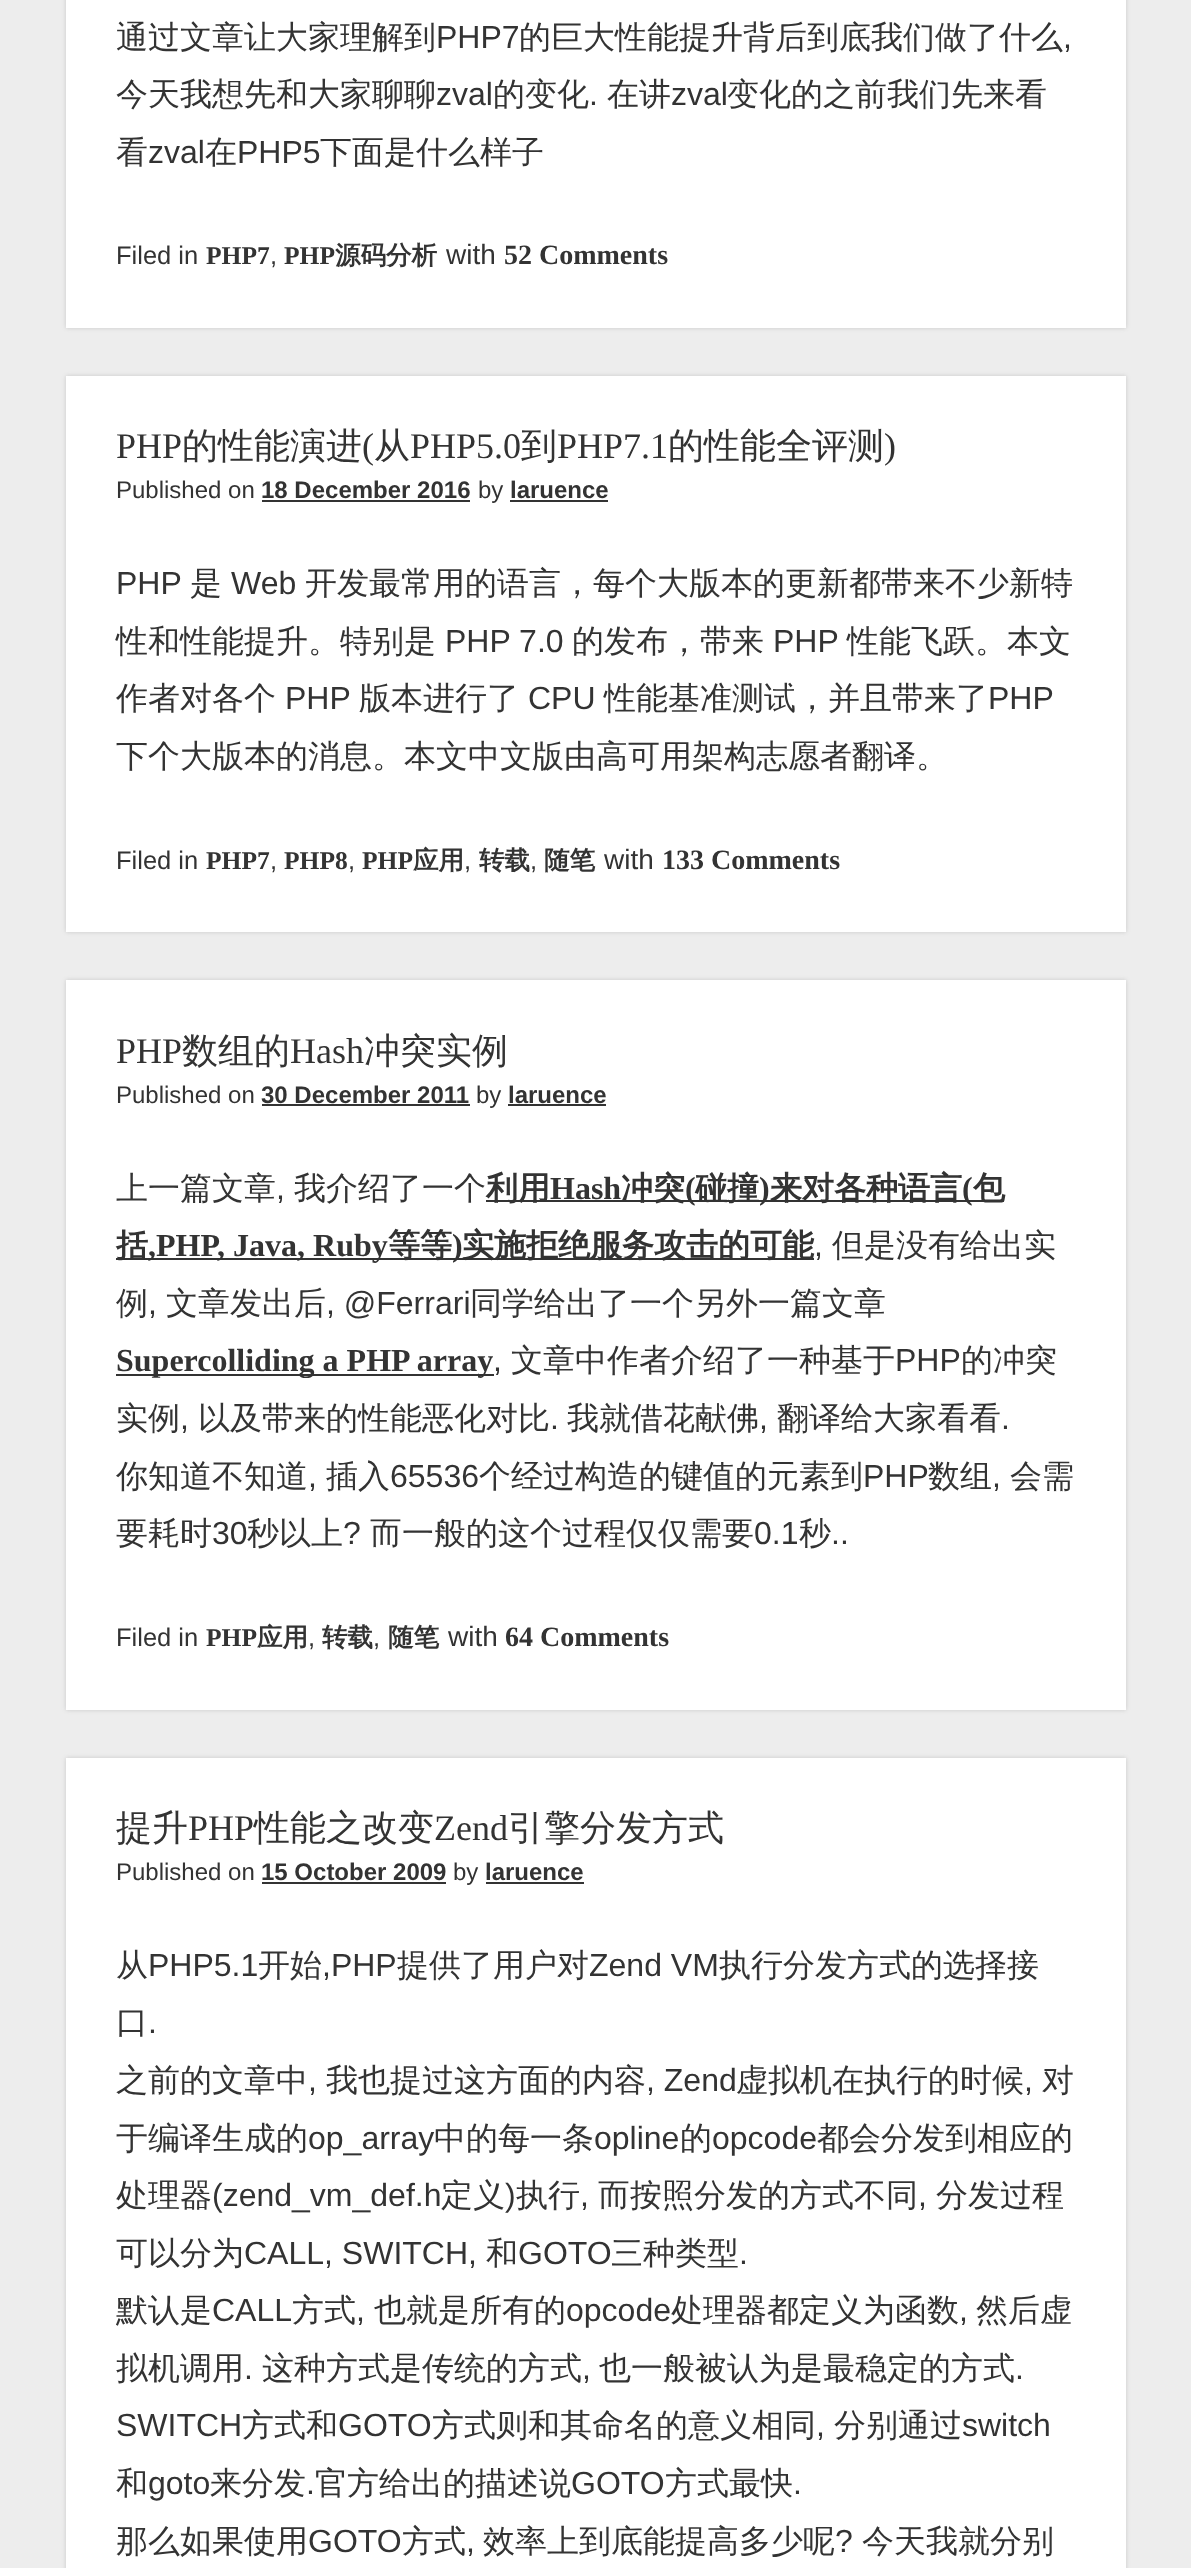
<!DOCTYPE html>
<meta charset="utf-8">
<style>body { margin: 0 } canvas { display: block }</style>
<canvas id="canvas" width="1191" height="2568"></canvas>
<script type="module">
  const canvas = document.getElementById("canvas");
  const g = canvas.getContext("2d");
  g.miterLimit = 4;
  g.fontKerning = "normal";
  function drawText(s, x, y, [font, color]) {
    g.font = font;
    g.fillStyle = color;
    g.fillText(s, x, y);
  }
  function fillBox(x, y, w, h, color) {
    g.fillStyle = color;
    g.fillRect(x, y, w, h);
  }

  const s1 = ["500 32px WenQuanYi Zen Hei", "#333333"];
  const s2 = ["32px Liberation Sans", "#333333"];
  const s3 = ["25.5px Liberation Sans", "#333333"];
  const s4 = ["bold 25.5px Liberation Serif", "#333333"];
  const s5 = ["bold 25.5px WenQuanYi Zen Hei", "#333333"];
  const s6 = ["28px Liberation Sans", "#333333"];
  const s7 = ["bold 28px Liberation Serif", "#333333"];
  const s8 = ["36px Liberation Serif", "#333333"];
  const s9 = ["500 36px WenQuanYi Zen Hei", "#333333"];
  const s10 = ["24px Liberation Sans", "#333333"];
  const s11 = ["bold 24px Liberation Sans", "#333333"];
  const s12 = ["bold 32px WenQuanYi Zen Hei", "#333333"];
  const s13 = ["bold 32px Liberation Serif", "#333333"];

  fillBox(0, 0, 1191, 2568, "#EDEDED");
  g.fillStyle = "rgba(58, 58, 58, 0.2)";
  g.filter = "blur(2px)";
  g.beginPath();
  g.rect(66, -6, 1060, 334);
  g.fill();
  g.filter = "none";
  fillBox(66, 0, 1060, 328, "#FFFFFF");
  drawText("通过文章让大家理解到", 116, 48, s1);
  drawText("PHP7", 436, 48, s2);
  drawText("的巨大性能提升背后到底我们做了什么", 519, 48, s1);
  drawText(",", 1063, 48, s2);
  drawText("今天我想先和大家聊聊", 116, 105, s1);
  drawText("zval", 436, 105, s2);
  drawText("的变化", 493, 105, s1);
  drawText(".", 589, 105, s2);
  drawText("在讲", 607, 105, s1);
  drawText("zval", 671, 105, s2);
  drawText("变化的之前我们先来看", 727, 105, s1);
  drawText("看", 116, 163, s1);
  drawText("zval", 148, 163, s2);
  drawText("在", 205, 163, s1);
  drawText("PHP5", 237, 163, s2);
  drawText("下面是什么样子", 320, 163, s1);
  drawText("Filed in", 116, 264, s3);
  drawText("PHP7", 206, 264, s4);
  drawText(",", 270, 264, s3);
  drawText("PHP", 284, 264, s4);
  drawText("源码分析", 335, 264, s5);
  drawText("with", 446, 264, s6);
  drawText("52 Comments", 504, 264, s7);
  g.fillStyle = "rgba(58, 58, 58, 0.2)";
  g.filter = "blur(2px)";
  g.beginPath();
  g.rect(66, 376, 1060, 556);
  g.fill();
  g.filter = "none";
  fillBox(66, 376, 1060, 556, "#FFFFFF");
  drawText("PHP", 116, 458, s8);
  drawText("的性能演进", 182, 458, s9);
  drawText("(", 362, 458, s8);
  drawText("从", 374, 458, s9);
  drawText("PHP5.0", 410, 458, s8);
  drawText("到", 521, 458, s9);
  drawText("PHP7.1", 557, 458, s8);
  drawText("的性能全评测", 668, 458, s9);
  drawText(")", 884, 458, s8);
  drawText("Published on", 116, 498, s10);
  drawText("18 December 2016", 261, 498, s11);
  fillBox(262, 500, 208, 2, "#333333");
  drawText("by", 478, 498, s10);
  drawText("laruence", 510, 498, s11);
  fillBox(510, 500, 98, 2, "#333333");
  drawText("PHP", 116, 594, s2);
  drawText("是", 190, 594, s1);
  drawText("Web", 231, 594, s2);
  drawText("开发最常用的语言，每个大版本的更新都带来不少新特", 305, 594, s1);
  drawText("性和性能提升。特别是", 116, 652, s1);
  drawText("PHP 7.0", 445, 652, s2);
  drawText("的发布，带来", 572, 652, s1);
  drawText("PHP", 773, 652, s2);
  drawText("性能飞跃。本文", 847, 652, s1);
  drawText("作者对各个", 116, 709, s1);
  drawText("PHP", 285, 709, s2);
  drawText("版本进行了", 359, 709, s1);
  drawText("CPU", 528, 709, s2);
  drawText("性能基准测试，并且带来了", 604, 709, s1);
  drawText("PHP", 988, 709, s2);
  drawText("下个大版本的消息。本文中文版由高可用架构志愿者翻译。", 116, 767, s1);
  drawText("Filed in", 116, 869, s3);
  drawText("PHP7", 206, 869, s4);
  drawText(",", 270, 869, s3);
  drawText("PHP8", 284, 869, s4);
  drawText(",", 348, 869, s3);
  drawText("PHP", 362, 869, s4);
  drawText("应用", 413, 869, s5);
  drawText(",", 464, 869, s3);
  drawText("转载", 479, 869, s5);
  drawText(",", 530, 869, s3);
  drawText("随笔", 544, 869, s5);
  drawText("with", 604, 869, s6);
  drawText("133 Comments", 662, 869, s7);
  g.fillStyle = "rgba(58, 58, 58, 0.2)";
  g.filter = "blur(2px)";
  g.beginPath();
  g.rect(66, 980, 1060, 730);
  g.fill();
  g.filter = "none";
  fillBox(66, 980, 1060, 730, "#FFFFFF");
  drawText("PHP", 116, 1063, s8);
  drawText("数组的", 182, 1063, s9);
  drawText("Hash", 290, 1063, s8);
  drawText("冲突实例", 364, 1063, s9);
  drawText("Published on", 116, 1103, s10);
  drawText("30 December 2011", 261, 1103, s11);
  fillBox(262, 1104, 208, 2, "#333333");
  drawText("by", 476, 1103, s10);
  drawText("laruence", 508, 1103, s11);
  fillBox(508, 1104, 98, 2, "#333333");
  drawText("上一篇文章", 116, 1199, s1);
  drawText(",", 276, 1199, s2);
  drawText("我介绍了一个", 294, 1199, s1);
  fillBox(486, 1200, 518, 2, "#333333");
  drawText("利用", 486, 1199, s12);
  drawText("Hash", 550, 1199, s13);
  drawText("冲突", 621, 1199, s12);
  drawText("(", 685, 1199, s13);
  drawText("碰撞", 695, 1199, s12);
  drawText(")", 759, 1199, s13);
  drawText("来对各种语言", 770, 1199, s12);
  drawText("(", 962, 1199, s13);
  drawText("包", 973, 1199, s12);
  fillBox(116, 1258, 698, 2, "#333333");
  drawText("括", 116, 1256, s12);
  drawText(",PHP, Java, Ruby", 148, 1256, s13);
  drawText("等等", 388, 1256, s12);
  drawText(")", 452, 1256, s13);
  drawText("实施拒绝服务攻击的可能", 462, 1256, s12);
  drawText(",", 814, 1256, s2);
  drawText("但是没有给出实", 832, 1256, s1);
  drawText("例", 116, 1314, s1);
  drawText(",", 148, 1314, s2);
  drawText("文章发出后", 166, 1314, s1);
  drawText(", @Ferrari", 326, 1314, s2);
  drawText("同学给出了一个另外一篇文章", 470, 1314, s1);
  fillBox(116, 1374, 378, 2, "#333333");
  drawText("Supercolliding a PHP array", 116, 1371, s13);
  drawText(",", 493, 1371, s2);
  drawText("文章中作者介绍了一种基于", 511, 1371, s1);
  drawText("PHP", 895, 1371, s2);
  drawText("的冲突", 961, 1371, s1);
  drawText("实例", 116, 1429, s1);
  drawText(",", 180, 1429, s2);
  drawText("以及带来的性能恶化对比", 198, 1429, s1);
  drawText(".", 550, 1429, s2);
  drawText("我就借花献佛", 567, 1429, s1);
  drawText(",", 759, 1429, s2);
  drawText("翻译给大家看看", 777, 1429, s1);
  drawText(".", 1001, 1429, s2);
  drawText("你知道不知道", 116, 1487, s1);
  drawText(",", 308, 1487, s2);
  drawText("插入", 326, 1487, s1);
  drawText("65536", 390, 1487, s2);
  drawText("个经过构造的键值的元素到", 479, 1487, s1);
  drawText("PHP", 863, 1487, s2);
  drawText("数组", 928, 1487, s1);
  drawText(",", 992, 1487, s2);
  drawText("会需", 1010, 1487, s1);
  drawText("要耗时", 116, 1544, s1);
  drawText("30", 212, 1544, s2);
  drawText("秒以上", 247, 1544, s1);
  drawText("?", 343, 1544, s2);
  drawText("而一般的这个过程仅仅需要", 370, 1544, s1);
  drawText("0.1", 754, 1544, s2);
  drawText("秒", 799, 1544, s1);
  drawText("..", 831, 1544, s2);
  drawText("Filed in", 116, 1646, s3);
  drawText("PHP", 206, 1646, s4);
  drawText("应用", 257, 1646, s5);
  drawText(",", 308, 1646, s3);
  drawText("转载", 322, 1646, s5);
  drawText(",", 373, 1646, s3);
  drawText("随笔", 388, 1646, s5);
  drawText("with", 448, 1646, s6);
  drawText("64 Comments", 505, 1646, s7);
  g.fillStyle = "rgba(58, 58, 58, 0.2)";
  g.filter = "blur(2px)";
  g.beginPath();
  g.rect(66, 1758, 1060, 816);
  g.fill();
  g.filter = "none";
  fillBox(66, 1758, 1060, 810, "#FFFFFF");
  drawText("提升", 116, 1840, s9);
  drawText("PHP", 188, 1840, s8);
  drawText("性能之改变", 254, 1840, s9);
  drawText("Zend", 434, 1840, s8);
  drawText("引擎分发方式", 508, 1840, s9);
  drawText("Published on", 116, 1880, s10);
  drawText("15 October 2009", 261, 1880, s11);
  fillBox(262, 1882, 184, 2, "#333333");
  drawText("by", 453, 1880, s10);
  drawText("laruence", 485, 1880, s11);
  fillBox(486, 1882, 98, 2, "#333333");
  drawText("从", 116, 1976, s1);
  drawText("PHP5.1", 148, 1976, s2);
  drawText("开始", 258, 1976, s1);
  drawText(",PHP", 322, 1976, s2);
  drawText("提供了用户对", 397, 1976, s1);
  drawText("Zend VM", 589, 1976, s2);
  drawText("执行分发方式的选择接", 719, 1976, s1);
  drawText("口", 116, 2033, s1);
  drawText(".", 148, 2033, s2);
  drawText("之前的文章中", 116, 2091, s1);
  drawText(",", 308, 2091, s2);
  drawText("我也提过这方面的内容", 326, 2091, s1);
  drawText(", Zend", 646, 2091, s2);
  drawText("虚拟机在执行的时候", 736, 2091, s1);
  drawText(",", 1024, 2091, s2);
  drawText("对", 1042, 2091, s1);
  drawText("于编译生成的", 116, 2149, s1);
  drawText("op_array", 308, 2149, s2);
  drawText("中的每一条", 434, 2149, s1);
  drawText("opline", 594, 2149, s2);
  drawText("的", 680, 2149, s1);
  drawText("opcode", 712, 2149, s2);
  drawText("都会分发到相应的", 817, 2149, s1);
  drawText("处理器", 116, 2206, s1);
  drawText("(zend_vm_def.h", 212, 2206, s2);
  drawText("定义", 441, 2206, s1);
  drawText(")", 505, 2206, s2);
  drawText("执行", 516, 2206, s1);
  drawText(",", 580, 2206, s2);
  drawText("而按照分发的方式不同", 598, 2206, s1);
  drawText(",", 918, 2206, s2);
  drawText("分发过程", 936, 2206, s1);
  drawText("可以分为", 116, 2264, s1);
  drawText("CALL, SWITCH,", 244, 2264, s2);
  drawText("和", 486, 2264, s1);
  drawText("GOTO", 518, 2264, s2);
  drawText("三种类型", 611, 2264, s1);
  drawText(".", 739, 2264, s2);
  drawText("默认是", 116, 2321, s1);
  drawText("CALL", 212, 2321, s2);
  drawText("方式", 292, 2321, s1);
  drawText(",", 356, 2321, s2);
  drawText("也就是所有的", 374, 2321, s1);
  drawText("opcode", 566, 2321, s2);
  drawText("处理器都定义为函数", 671, 2321, s1);
  drawText(",", 959, 2321, s2);
  drawText("然后虚", 976, 2321, s1);
  drawText("拟机调用", 116, 2379, s1);
  drawText(".", 244, 2379, s2);
  drawText("这种方式是传统的方式", 262, 2379, s1);
  drawText(",", 582, 2379, s2);
  drawText("也一般被认为是最稳定的方式", 599, 2379, s1);
  drawText(".", 1015, 2379, s2);
  drawText("SWITCH", 116, 2436, s2);
  drawText("方式和", 242, 2436, s1);
  drawText("GOTO", 338, 2436, s2);
  drawText("方式则和其命名的意义相同", 432, 2436, s1);
  drawText(",", 816, 2436, s2);
  drawText("分别通过", 834, 2436, s1);
  drawText("switch", 962, 2436, s2);
  drawText("和", 116, 2494, s1);
  drawText("goto", 148, 2494, s2);
  drawText("来分发", 210, 2494, s1);
  drawText(".", 306, 2494, s2);
  drawText("官方给出的描述说", 315, 2494, s1);
  drawText("GOTO", 571, 2494, s2);
  drawText("方式最快", 665, 2494, s1);
  drawText(".", 793, 2494, s2);
  drawText("那么如果使用", 116, 2552, s1);
  drawText("GOTO", 308, 2552, s2);
  drawText("方式", 402, 2552, s1);
  drawText(",", 466, 2552, s2);
  drawText("效率上到底能提高多少呢", 483, 2552, s1);
  drawText("?", 835, 2552, s2);
  drawText("今天我就分别", 862, 2552, s1);
</script>
